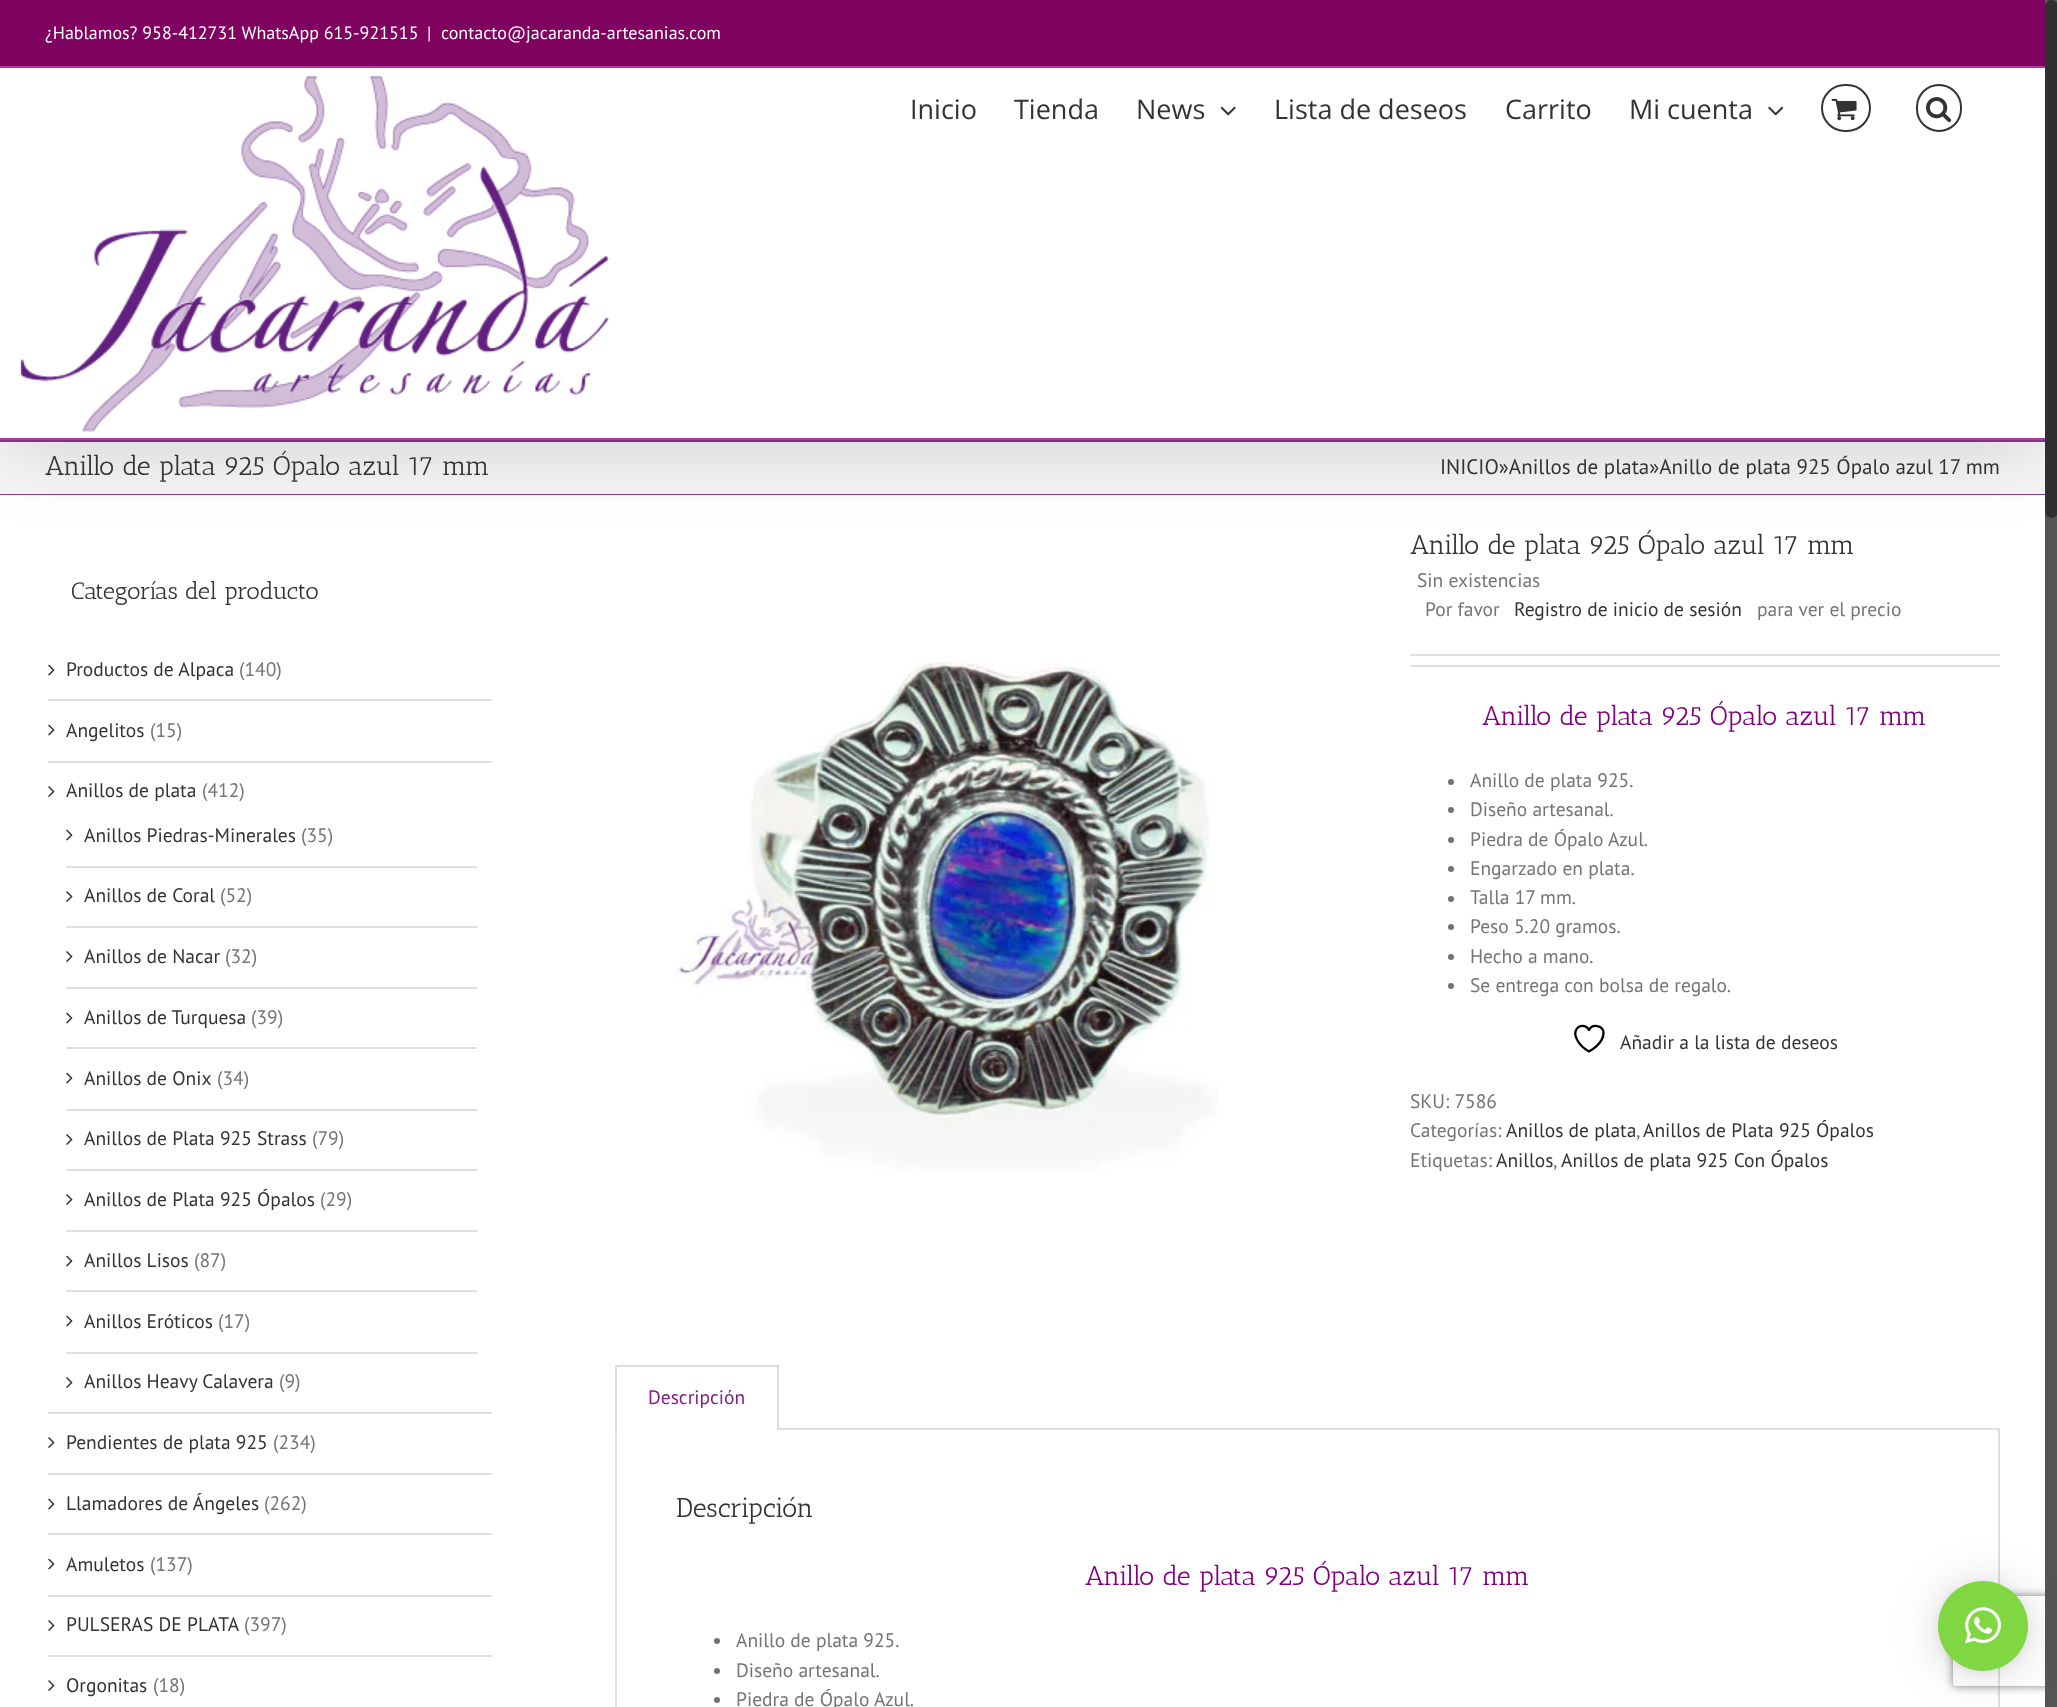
<!DOCTYPE html>
<meta charset="utf-8">
<style>body { margin: 0 } canvas { display: block }</style>
<canvas id="canvas" width="2057" height="1707"></canvas>
<script type="module">
  const canvas = document.getElementById("canvas");
  const g = canvas.getContext("2d");
  g.miterLimit = 4;
  g.fontKerning = "normal";
  function drawText(s, x, y, [font, color]) {
    g.font = font;
    g.fillStyle = color;
    g.fillText(s, x, y);
  }
  function fillBox(x, y, w, h, color) {
    g.fillStyle = color;
    g.fillRect(x, y, w, h);
  }
  function fillRounded(x, y, w, h, r, color) {
    g.fillStyle = color;
    g.beginPath();
    g.roundRect(x, y, w, h, r);
    g.fill();
  }
  async function drawPicture(src, x, y, w, h) {
    const img = new Image();
    img.src = src;
    await img.decode();
    g.drawImage(img, x, y, w, h);
  }

  const s1 = ["18px PT Sans", "#FFFFFF"];
  const s2 = ["27px Open Sans", "#333333"];
  const s3 = ["27px Antic Slab", "#333333"];
  const s4 = ["21px PT Sans", "#333333"];
  const s5 = ["24px Antic Slab", "#333333"];
  const s6 = ["19.5px PT Sans", "#333333"];
  const s7 = ["19.5px PT Sans", "#747474"];
  const s8 = ["27px Antic Slab", "#800080"];
  const s9 = ["19.5px PT Sans", "#841E84"];

  fillBox(0, 0, 2057, 1707, "#F6F6F6");
  fillBox(0, 440, 2045, 2, "#8C388C");
  fillBox(0, 494, 2045, 1, "#8C388C");
  fillBox(0, 495, 2045, 1212, "#FFFFFF");
  g.fillStyle = "rgba(0, 0, 0, 0.14)";
  g.filter = "blur(37.5px)";
  g.beginPath();
  g.rect(3, 18, 2039, 434);
  g.fill();
  g.filter = "none";
  fillBox(0, 0, 2045, 66, "#7F035E");
  fillBox(0, 66, 2045, 2, "#B7389C");
  drawText("¿Hablamos? 958-412731 WhatsApp 615-921515", 45, 39, s1);
  drawText("|", 427, 39, s1);
  drawText("contacto@jacaranda-artesanias.com", 441, 39, s1);
  fillBox(0, 68, 2045, 370, "#FFFFFF");
  fillBox(0, 438, 2045, 2, "#B7389C");
  await drawPicture("pic1.png", 20, 75, 590, 358);
  drawText("Inicio", 910, 119, s2);
  drawText("Tienda", 1014, 119, s2);
  drawText("News", 1136, 119, s2);
  await drawPicture("pic2.png", 1220, 106, 16, 10);
  drawText("Lista de deseos", 1274, 119, s2);
  drawText("Carrito", 1505, 119, s2);
  drawText("Mi cuenta", 1629, 119, s2);
  await drawPicture("pic3.png", 1768, 106, 16, 10);
  g.beginPath();
  g.roundRect(1822, 85, 48, 46, 23);
  g.strokeStyle = "#333333";
  g.lineWidth = 2;
  g.stroke();
  await drawPicture("pic4.png", 1831, 98, 26, 23);
  g.beginPath();
  g.roundRect(1917, 85, 44, 46, 22);
  g.stroke();
  await drawPicture("pic5.png", 1926, 97, 26, 26);
  drawText("Anillo de plata 925 Ópalo azul 17 mm", 45, 475, s3);
  drawText("INICIO»Anillos de plata»Anillo de plata 925 Ópalo azul 17 mm", 1440, 474, s4);
  drawText("Categorías del producto", 71, 599, s5);
  fillBox(48, 699, 444, 2, "#E0DEDE");
  await drawPicture("pic6.png", 48, 664, 7, 12);
  drawText("Productos de Alpaca", 66, 676, s6);
  drawText("(140)", 239, 676, s7);
  fillBox(48, 761, 444, 2, "#E0DEDE");
  await drawPicture("pic6.png", 48, 724, 7, 12);
  drawText("Angelitos", 66, 737, s6);
  drawText("(15)", 150, 737, s7);
  fillBox(48, 1412, 444, 2, "#E0DEDE");
  await drawPicture("pic7.png", 48, 786, 7, 11);
  drawText("Anillos de plata", 66, 797, s6);
  drawText("(412)", 202, 797, s7);
  fillBox(66, 866, 411, 2, "#E0DEDE");
  await drawPicture("pic6.png", 66, 829, 7, 12);
  drawText("Anillos Piedras-Minerales", 84, 842, s6);
  drawText("(35)", 301, 842, s7);
  fillBox(66, 926, 411, 2, "#E0DEDE");
  await drawPicture("pic7.png", 66, 891, 7, 11);
  drawText("Anillos de Coral", 84, 902, s6);
  drawText("(52)", 220, 902, s7);
  fillBox(66, 987, 411, 2, "#E0DEDE");
  await drawPicture("pic7.png", 66, 951, 7, 11);
  drawText("Anillos de Nacar", 84, 963, s6);
  drawText("(32)", 225, 963, s7);
  fillBox(66, 1047, 411, 2, "#E0DEDE");
  await drawPicture("pic6.png", 66, 1012, 7, 12);
  drawText("Anillos de Turquesa", 84, 1024, s6);
  drawText("(39)", 251, 1024, s7);
  fillBox(66, 1109, 411, 2, "#E0DEDE");
  await drawPicture("pic6.png", 66, 1072, 7, 12);
  drawText("Anillos de Onix", 84, 1085, s6);
  drawText("(34)", 217, 1085, s7);
  fillBox(66, 1169, 411, 2, "#E0DEDE");
  await drawPicture("pic7.png", 66, 1134, 7, 11);
  drawText("Anillos de Plata 925 Strass", 84, 1145, s6);
  drawText("(79)", 312, 1145, s7);
  fillBox(66, 1230, 411, 2, "#E0DEDE");
  await drawPicture("pic7.png", 66, 1194, 7, 11);
  drawText("Anillos de Plata 925 Ópalos", 84, 1206, s6);
  drawText("(29)", 320, 1206, s7);
  fillBox(66, 1290, 411, 2, "#E0DEDE");
  await drawPicture("pic6.png", 66, 1255, 7, 12);
  drawText("Anillos Lisos", 84, 1267, s6);
  drawText("(87)", 194, 1267, s7);
  fillBox(66, 1352, 411, 2, "#E0DEDE");
  await drawPicture("pic6.png", 66, 1315, 7, 12);
  drawText("Anillos Eróticos", 84, 1328, s6);
  drawText("(17)", 218, 1328, s7);
  await drawPicture("pic7.png", 66, 1377, 7, 11);
  drawText("Anillos Heavy Calavera", 84, 1388, s6);
  drawText("(9)", 279, 1388, s7);
  fillBox(48, 1473, 444, 2, "#E0DEDE");
  await drawPicture("pic7.png", 48, 1437, 7, 11);
  drawText("Pendientes de plata 925", 66, 1449, s6);
  drawText("(234)", 273, 1449, s7);
  fillBox(48, 1533, 444, 2, "#E0DEDE");
  await drawPicture("pic6.png", 48, 1498, 7, 12);
  drawText("Llamadores de Ángeles", 66, 1510, s6);
  drawText("(262)", 264, 1510, s7);
  fillBox(48, 1595, 444, 2, "#E0DEDE");
  await drawPicture("pic6.png", 48, 1558, 7, 12);
  drawText("Amuletos", 66, 1571, s6);
  drawText("(137)", 150, 1571, s7);
  fillBox(48, 1655, 444, 2, "#E0DEDE");
  await drawPicture("pic7.png", 48, 1620, 7, 11);
  drawText("PULSERAS DE PLATA", 66, 1631, s6);
  drawText("(397)", 244, 1631, s7);
  await drawPicture("pic7.png", 48, 1680, 7, 11);
  drawText("Orgonitas", 66, 1692, s6);
  drawText("(18)", 153, 1692, s7);
  await drawPicture("pic8.png", 675, 659, 543, 512);
  drawText("Anillo de plata 925 Ópalo azul 17 mm", 1410, 554, s3);
  drawText("Sin existencias", 1417, 587, s7);
  drawText("Por favor", 1425, 616, s7);
  drawText("Registro de inicio de sesión", 1514, 616, s6);
  drawText("para ver el precio", 1757, 616, s7);
  fillBox(1410, 654, 590, 2, "#E0DEDE");
  fillBox(1410, 665, 590, 2, "#E0DEDE");
  drawText("Anillo de plata 925 Ópalo azul 17 mm", 1482, 725, s8);
  g.fillStyle = "#747474";
  g.beginPath();
  g.arc(1451, 782, 3, 0, Math.PI * 2);
  g.fill();
  drawText("Anillo de plata 925.", 1470, 787, s7);
  g.beginPath();
  g.arc(1451, 810, 3, 0, Math.PI * 2);
  g.fill();
  drawText("Diseño artesanal.", 1470, 816, s7);
  g.beginPath();
  g.arc(1451, 840, 3, 0, Math.PI * 2);
  g.fill();
  drawText("Piedra de Ópalo Azul.", 1470, 846, s7);
  g.beginPath();
  g.arc(1451, 869, 3, 0, Math.PI * 2);
  g.fill();
  drawText("Engarzado en plata.", 1470, 875, s7);
  g.beginPath();
  g.arc(1451, 899, 3, 0, Math.PI * 2);
  g.fill();
  drawText("Talla 17 mm.", 1470, 904, s7);
  g.beginPath();
  g.arc(1451, 927, 3, 0, Math.PI * 2);
  g.fill();
  drawText("Peso 5.20 gramos.", 1470, 933, s7);
  g.beginPath();
  g.arc(1451, 957, 3, 0, Math.PI * 2);
  g.fill();
  drawText("Hecho a mano.", 1470, 963, s7);
  g.beginPath();
  g.arc(1451, 986, 3, 0, Math.PI * 2);
  g.fill();
  drawText("Se entrega con bolsa de regalo.", 1470, 992, s7);
  g.beginPath();
  g.moveTo(1603.5, 1033);
  g.bezierCurveTo(1603.5, 1025, 1592, 1023.5, 1589, 1030);
  g.bezierCurveTo(1585.5, 1021.5, 1569.5, 1026.5, 1577.5, 1040.5);
  g.bezierCurveTo(1580, 1045, 1584.5, 1049, 1589, 1051.5);
  g.bezierCurveTo(1589, 1051.5, 1603.5, 1044, 1603.5, 1033);
  g.closePath();
  g.strokeStyle = "#000000";
  g.lineWidth = 2.3;
  g.lineCap = "round";
  g.lineJoin = "round";
  g.stroke();
  drawText("Añadir a la lista de deseos", 1620, 1049, s6);
  drawText("SKU: 7586", 1410, 1108, s7);
  drawText("Categorías:", 1410, 1137, s7);
  drawText("Anillos de plata", 1506, 1137, s6);
  drawText(",", 1636, 1137, s7);
  drawText("Anillos de Plata 925 Ópalos", 1643, 1137, s6);
  drawText("Etiquetas:", 1410, 1167, s7);
  drawText("Anillos", 1496, 1167, s6);
  drawText(",", 1553, 1167, s7);
  drawText("Anillos de plata 925 Con Ópalos", 1561, 1167, s6);
  fillBox(779, 1428, 1221, 2, "#E0DEDE");
  fillBox(615, 1365, 164, 2, "#DDDDDD");
  fillBox(777, 1365, 2, 65, "#DDDDDD");
  fillBox(615, 1365, 2, 65, "#DDDDDD");
  drawText("Descripción", 648, 1404, s9);
  fillBox(1998, 1430, 2, 277, "#E0DEDE");
  fillBox(615, 1430, 2, 277, "#E0DEDE");
  drawText("Descripción", 676, 1517, s3);
  drawText("Anillo de plata 925 Ópalo azul 17 mm", 1085, 1585, s8);
  g.fillStyle = "#747474";
  g.beginPath();
  g.arc(717, 1641, 3, 0, Math.PI * 2);
  g.fill();
  drawText("Anillo de plata 925.", 736, 1647, s7);
  g.beginPath();
  g.arc(717, 1671, 3, 0, Math.PI * 2);
  g.fill();
  drawText("Diseño artesanal.", 736, 1677, s7);
  g.beginPath();
  g.arc(717, 1700, 3, 0, Math.PI * 2);
  g.fill();
  drawText("Piedra de Ópalo Azul.", 736, 1706, s7);
  g.save();
  g.beginPath();
  g.moveTo(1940, 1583);
  g.lineTo(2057, 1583);
  g.lineTo(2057, 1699);
  g.lineTo(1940, 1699);
  g.closePath();
  g.moveTo(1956, 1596);
  g.lineTo(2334, 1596);
  g.bezierCurveTo(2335.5, 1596, 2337, 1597.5, 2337, 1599);
  g.lineTo(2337, 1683);
  g.bezierCurveTo(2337, 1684.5, 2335.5, 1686, 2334, 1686);
  g.lineTo(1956, 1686);
  g.bezierCurveTo(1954.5, 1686, 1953, 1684.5, 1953, 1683);
  g.lineTo(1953, 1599);
  g.bezierCurveTo(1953, 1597.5, 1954.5, 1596, 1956, 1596);
  g.closePath();
  g.clip("evenodd");
  g.fillStyle = "#808080";
  g.filter = "blur(4px)";
  g.beginPath();
  g.roundRect(1953, 1596, 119, 90, 3);
  g.fill();
  g.filter = "none";
  g.restore();
  fillBox(2045, 0, 12, 1707, "#555555");
  fillRounded(2045, 0, 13, 518, 6.5, "#303030");
  g.fillStyle = "rgba(0, 0, 0, 0.16)";
  g.filter = "blur(24px)";
  g.beginPath();
  g.roundRect(1938, 1584, 90, 90, 45);
  g.fill();
  g.filter = "none";
  g.fillStyle = "rgba(0, 0, 0, 0.06)";
  g.filter = "blur(4.5px)";
  g.beginPath();
  g.roundRect(1938, 1583, 90, 90, 45);
  g.fill();
  g.filter = "none";
  g.fillStyle = "#81D742";
  g.beginPath();
  g.arc(1983, 1626, 45, 0, Math.PI * 2);
  g.fill();
  await drawPicture("pic9.png", 1965, 1607, 36, 37);
</script>
